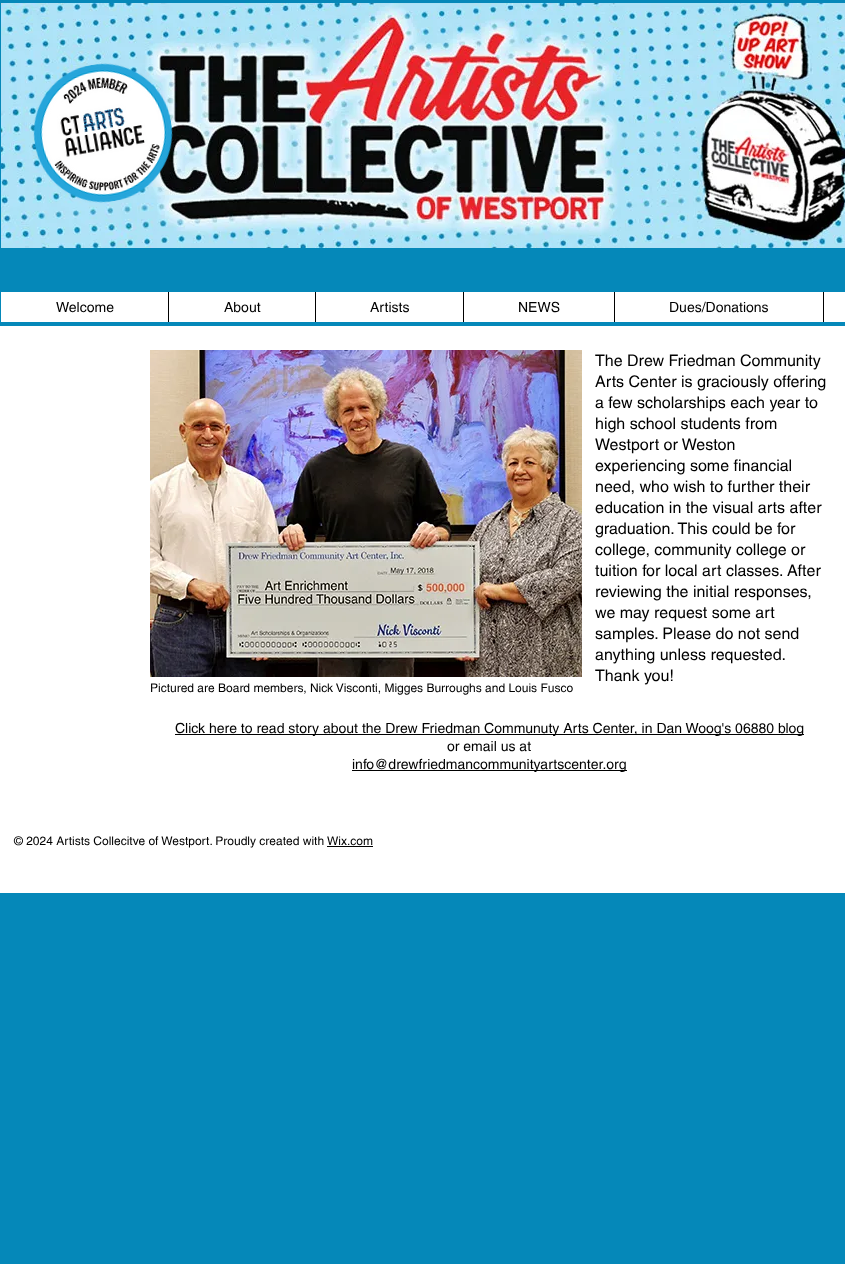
<!DOCTYPE html>
<meta charset="utf-8">
<style>body { margin: 0 } canvas { display: block }</style>
<canvas id="canvas" width="845" height="1264"></canvas>
<script type="module">
  const canvas = document.getElementById("canvas");
  const g = canvas.getContext("2d");
  g.miterLimit = 4;
  g.fontKerning = "normal";
  function drawText(s, x, y, [font, color]) {
    g.font = font;
    g.fillStyle = color;
    g.fillText(s, x, y);
  }
  function fillBox(x, y, w, h, color) {
    g.fillStyle = color;
    g.fillRect(x, y, w, h);
  }
  async function drawPicture(src, x, y, w, h) {
    const img = new Image();
    img.src = src;
    await img.decode();
    g.drawImage(img, x, y, w, h);
  }

  const s1 = ["14px helvetica", "#000000"];
  const s2 = ["16px helvetica", "#000000"];
  const s3 = ["12px helvetica", "#000000"];

  fillBox(0, 0, 845, 1264, "#0588B9");
  await drawPicture("pic1.png", 1, 3, 844, 245);
  await drawPicture("pic2.png", 33, 63, 140, 140);
  fillBox(1, 292, 844, 30, "#FFFFFF");
  drawText("Welcome", 56, 312, s1);
  fillBox(168, 292, 1, 30, "#000000");
  drawText("About", 224, 312, s1);
  fillBox(315, 292, 1, 30, "#000000");
  drawText("Artists", 370, 312, s1);
  fillBox(463, 292, 1, 30, "#000000");
  drawText("NEWS", 518, 312, s1);
  fillBox(614, 292, 1, 30, "#000000");
  drawText("Dues/Donations", 669, 312, s1);
  fillBox(823, 292, 1, 30, "#000000");
  fillBox(0, 326, 845, 567, "#FFFFFF");
  await drawPicture("pic3.png", 150, 350, 432, 327);
  drawText("The Drew Friedman Community", 595, 366, s2);
  drawText("Arts Center is graciously offering", 595, 387, s2);
  drawText("a few scholarships each year to", 595, 408, s2);
  drawText("high school students from", 595, 429, s2);
  drawText("Westport or Weston", 595, 450, s2);
  drawText("experiencing some financial", 595, 471, s2);
  drawText("need, who wish to further their", 595, 492, s2);
  drawText("education in the visual arts after", 595, 513, s2);
  drawText("graduation. This could be for", 595, 534, s2);
  drawText("college, community college or", 595, 555, s2);
  drawText("tuition for local art classes. After", 595, 576, s2);
  drawText("reviewing the initial responses,", 595, 597, s2);
  drawText("we may request some art", 595, 618, s2);
  drawText("samples. Please do not send", 595, 639, s2);
  drawText("anything unless requested.", 595, 660, s2);
  drawText("Thank you!", 595, 681, s2);
  drawText("Pictured are Board members, Nick Visconti, Migges Burroughs and Louis Fusco", 150, 692, s3);
  fillBox(175, 734, 629, 1, "#000000");
  drawText("Click here to read story about the Drew Friedman Communuty Arts Center, in Dan Woog's 06880 blog", 175, 733, s1);
  drawText("or email us at", 447, 751, s1);
  fillBox(352, 770, 275, 1, "#000000");
  drawText("info@drewfriedmancommunityartscenter.org", 352, 769, s1);
  drawText("© 2024 Artists Collecitve of Westport. Proudly created with Wix.com", 14, 845, s3);
  fillBox(327, 846, 46, 1, "#000000");
</script>
